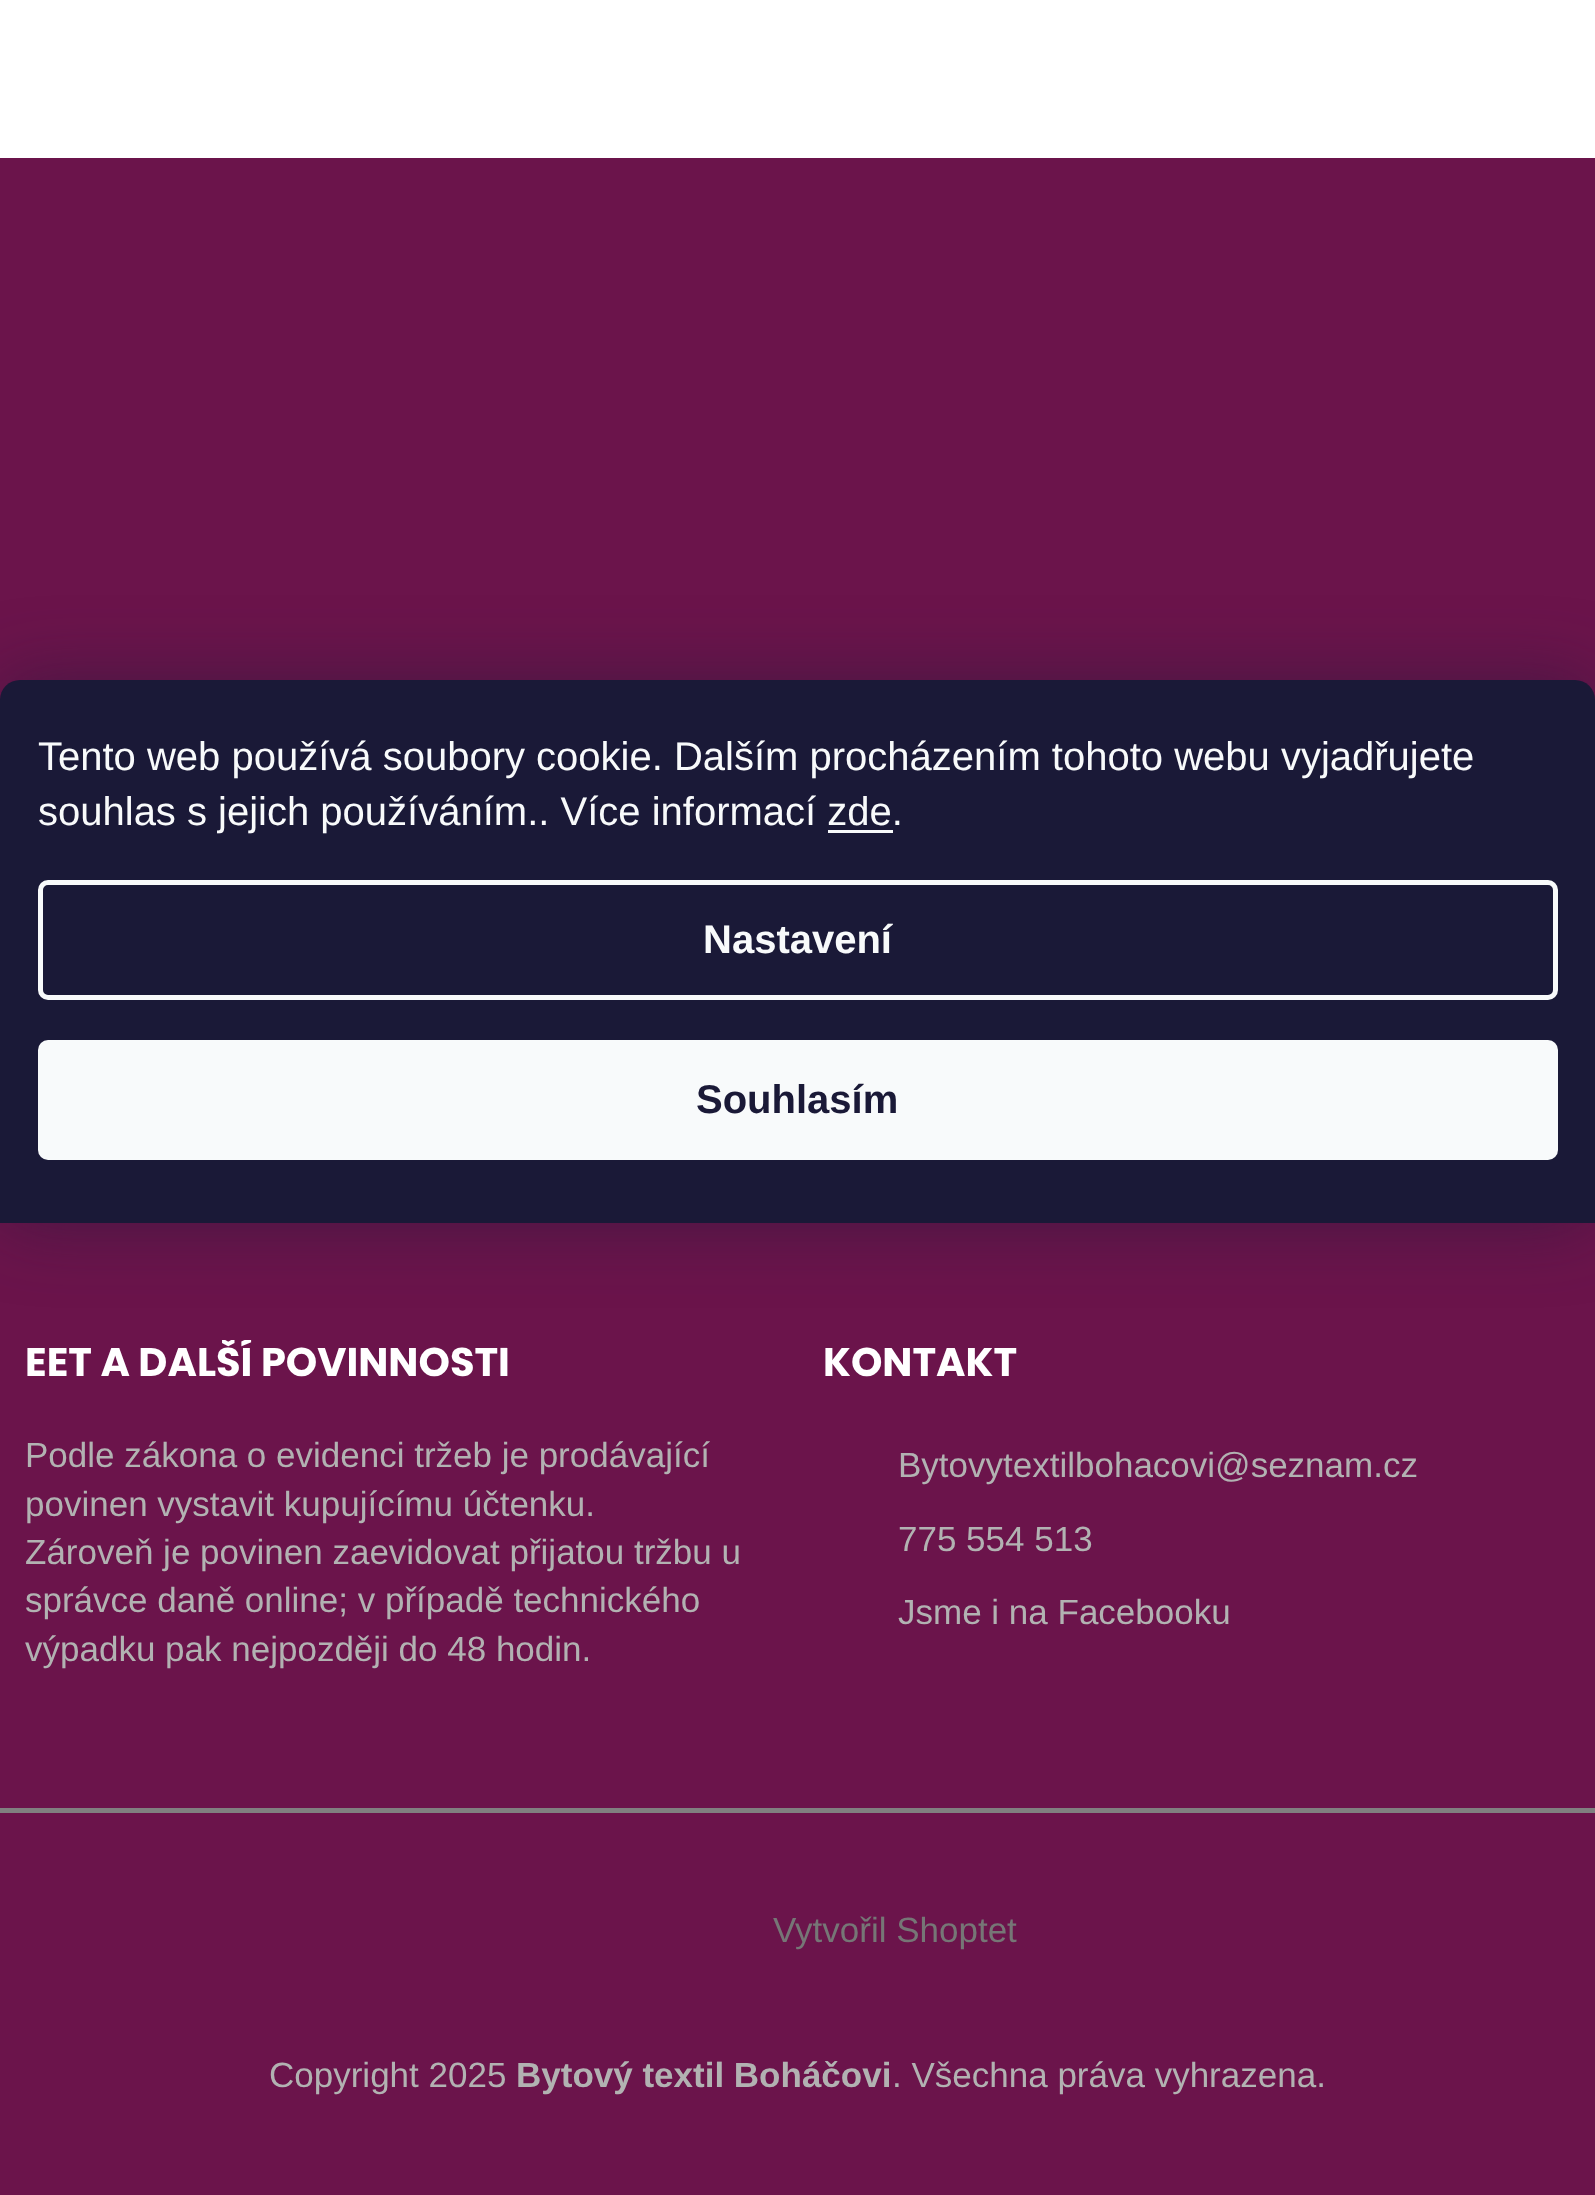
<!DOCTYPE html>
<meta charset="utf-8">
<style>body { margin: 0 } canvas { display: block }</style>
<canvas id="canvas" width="1595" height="2195"></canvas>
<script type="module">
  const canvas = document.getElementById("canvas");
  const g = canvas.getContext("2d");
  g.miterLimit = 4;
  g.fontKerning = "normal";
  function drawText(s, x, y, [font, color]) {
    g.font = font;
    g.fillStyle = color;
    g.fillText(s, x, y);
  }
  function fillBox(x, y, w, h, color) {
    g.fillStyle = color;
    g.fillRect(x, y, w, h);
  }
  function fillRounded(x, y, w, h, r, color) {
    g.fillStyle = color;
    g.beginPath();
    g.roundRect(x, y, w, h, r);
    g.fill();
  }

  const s1 = ["40px Liberation Sans", "#F8FAFB"];
  const s2 = ["bold 40px Liberation Sans", "#F8FAFB"];
  const s3 = ["bold 40px Liberation Sans", "#1A1937"];
  const s4 = ["bold 40px Poppins", "#FFFFFF"];
  const s5 = ["35px Liberation Sans", "#B2B2B2"];
  const s6 = ["35px Liberation Sans", "#767676"];
  const s7 = ["bold 35px Liberation Sans", "#B2B2B2"];

  fillBox(0, 0, 1595, 2195, "#FFFFFF");
  fillBox(0, 158, 1595, 2037, "#6B144B");
  g.fillStyle = "rgba(27, 25, 57, 0.5)";
  g.filter = "blur(37.5px)";
  g.beginPath();
  g.roundRect(0, 680, 1595, 543, 20);
  g.fill();
  g.filter = "none";
  g.fillStyle = "#1A1937";
  g.beginPath();
  g.roundRect(0, 680, 1595, 543, [20, 20, 0, 0]);
  g.fill();
  drawText("Tento web používá soubory cookie. Dalším procházením tohoto webu vyjadřujete", 38, 770, s1);
  drawText("souhlas s jejich používáním.. Více informací zde.", 38, 825, s1);
  fillBox(828, 830, 65, 3, "#F8FAFB");
  g.beginPath();
  g.roundRect(40.5, 882.5, 1515, 115, 7.5);
  g.strokeStyle = "#F8FAFB";
  g.lineWidth = 5;
  g.stroke();
  drawText("Nastavení", 703, 953, s2);
  fillRounded(38, 1040, 1520, 120, 10, "#F8FAFB");
  drawText("Souhlasím", 696, 1113, s3);
  g.save();
  g.beginPath();
  g.rect(25, 1340, 748, 335);
  g.clip();
  drawText("EET A DALŠÍ POVINNOSTI", 25, 1376, s4);
  g.restore();
  drawText("Podle zákona o evidenci tržeb je prodávající", 25, 1467, s5);
  drawText("povinen vystavit kupujícímu účtenku.", 25, 1516, s5);
  drawText("Zároveň je povinen zaevidovat přijatou tržbu u", 25, 1564, s5);
  drawText("správce daně online; v případě technického", 25, 1612, s5);
  drawText("výpadku pak nejpozději do 48 hodin.", 25, 1661, s5);
  drawText("KONTAKT", 823, 1376, s4);
  drawText("Bytovytextilbohacovi@seznam.cz", 898, 1477, s5);
  drawText("775 554 513", 898, 1551, s5);
  drawText("Jsme i na Facebooku", 898, 1624, s5);
  fillBox(0, 1808, 1595, 5, "#808080");
  drawText("Vytvořil Shoptet", 773, 1942, s6);
  drawText("Copyright 2025", 269, 2087, s5);
  drawText("Bytový textil Boháčovi", 516, 2087, s7);
  drawText(". Všechna práva vyhrazena.", 892, 2087, s5);
</script>
